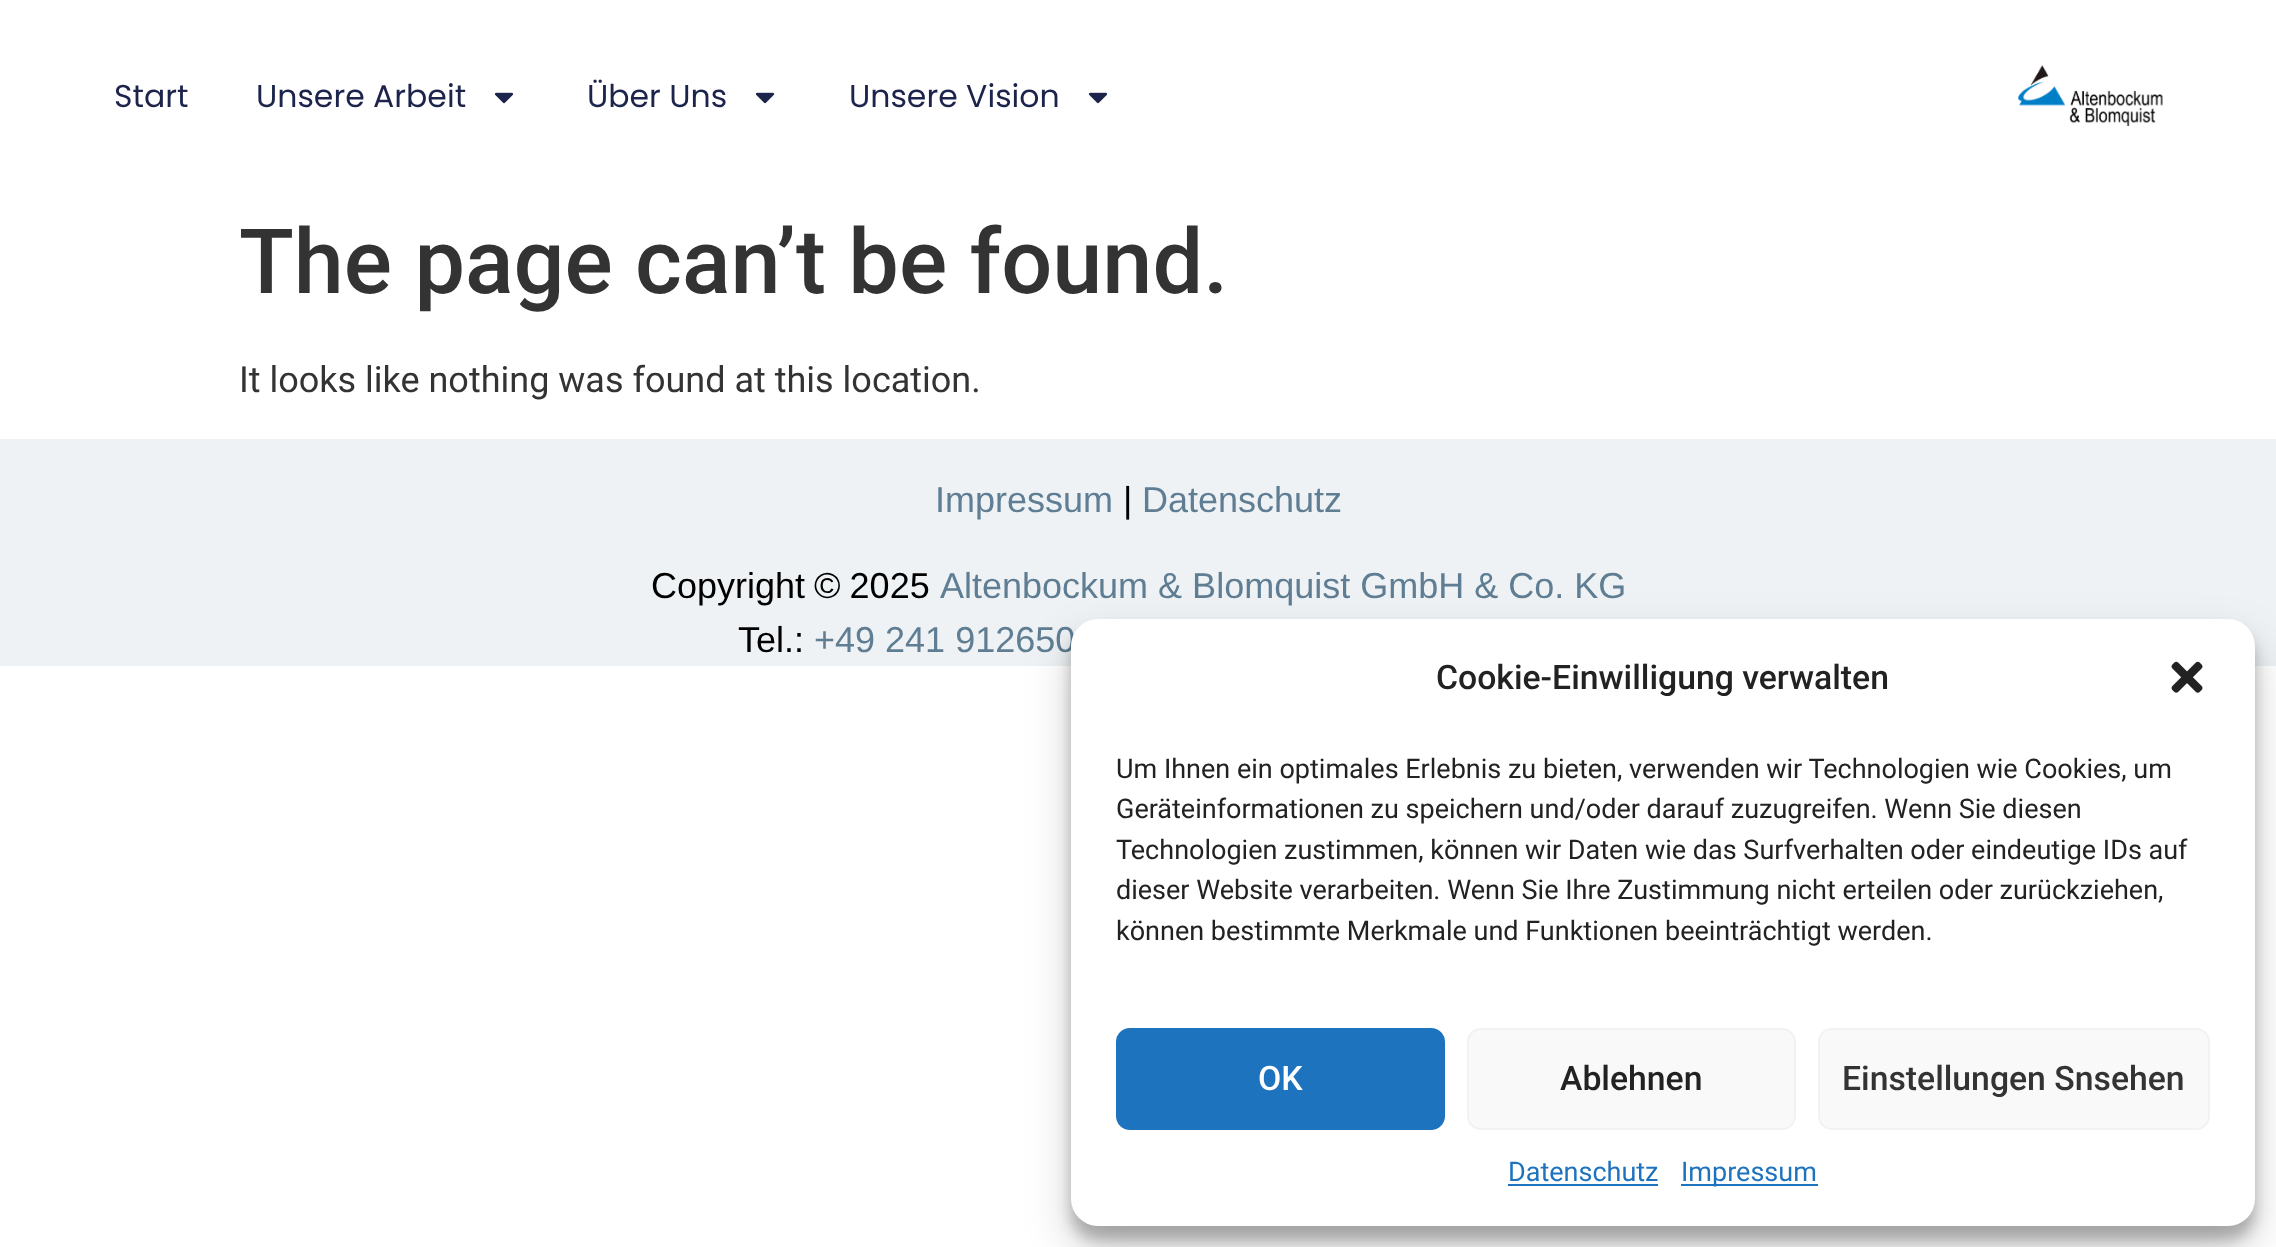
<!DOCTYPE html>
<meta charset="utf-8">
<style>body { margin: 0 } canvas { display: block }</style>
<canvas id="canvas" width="2276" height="1247"></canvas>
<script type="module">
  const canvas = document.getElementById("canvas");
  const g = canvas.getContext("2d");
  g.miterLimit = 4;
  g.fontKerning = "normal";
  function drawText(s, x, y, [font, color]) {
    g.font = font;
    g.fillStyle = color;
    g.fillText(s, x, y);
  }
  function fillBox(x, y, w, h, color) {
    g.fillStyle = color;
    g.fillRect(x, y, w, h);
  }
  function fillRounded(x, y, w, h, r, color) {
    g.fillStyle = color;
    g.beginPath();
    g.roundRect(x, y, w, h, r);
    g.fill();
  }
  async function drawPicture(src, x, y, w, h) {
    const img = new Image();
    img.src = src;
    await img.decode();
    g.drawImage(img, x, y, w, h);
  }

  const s1 = ["31.5px Poppins", "#1C244B"];
  const s2 = ["500 90px Roboto", "#333333"];
  const s3 = ["36px Roboto", "#333333"];
  const s4 = ["36px Liberation Sans", "#5F7D93"];
  const s5 = ["36px Liberation Sans", "#000000"];
  const s6 = ["500 33.75px Roboto", "#222222"];
  const s7 = ["27px Roboto", "#222222"];
  const s8 = ["500 33.75px Roboto", "#FFFFFF"];
  const s9 = ["500 33.75px Roboto", "#333333"];
  const s10 = ["27px Roboto", "#1E73BE"];

  fillBox(0, 0, 2276, 1247, "#FFFFFF");
  drawText("Start", 114, 107, s1);
  drawText("Unsere Arbeit", 256, 107, s1);
  await drawPicture("pic1.png", 494, 92, 20, 12);
  drawText("Über Uns", 587, 107, s1);
  await drawPicture("pic1.png", 755, 92, 20, 12);
  drawText("Unsere Vision", 849, 107, s1);
  await drawPicture("pic1.png", 1088, 92, 20, 12);
  await drawPicture("pic2.png", 2018, 65, 145, 61);
  drawText("The page can’t be found.", 239, 293, s2);
  drawText("It looks like nothing was found at this location.", 239, 392, s3);
  fillBox(0, 439, 2276, 227, "#EEF2F4");
  drawText("Impressum", 935, 512, s4);
  drawText("|", 1123, 512, s5);
  drawText("Datenschutz", 1142, 512, s4);
  g.wordSpacing = "-1px";
  drawText("Copyright © 2025", 651, 598, s5);
  g.wordSpacing = "0px";
  drawText("Altenbockum & Blomquist GmbH & Co. KG", 940, 598, s4);
  drawText("Tel.:", 738, 652, s5);
  drawText("+49 241 912650", 814, 652, s4);
  g.fillStyle = "rgba(0, 0, 0, 0.23)";
  g.filter = "blur(7px)";
  g.beginPath();
  g.roundRect(1071, 632, 1184, 608, 27);
  g.fill();
  g.filter = "none";
  g.fillStyle = "rgba(0, 0, 0, 0.19)";
  g.filter = "blur(22.5px)";
  g.beginPath();
  g.roundRect(1071, 641, 1184, 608, 27);
  g.fill();
  g.filter = "none";
  fillRounded(1071, 619, 1184, 607, 27, "#FFFFFF");
  drawText("Cookie-Einwilligung verwalten", 1436, 689, s6);
  await drawPicture("pic3.png", 2171, 661, 32, 32);
  drawText("Um Ihnen ein optimales Erlebnis zu bieten, verwenden wir Technologien wie Cookies, um", 1116, 778, s7);
  drawText("Geräteinformationen zu speichern und/oder darauf zuzugreifen. Wenn Sie diesen", 1116, 818, s7);
  drawText("Technologien zustimmen, können wir Daten wie das Surfverhalten oder eindeutige IDs auf", 1116, 859, s7);
  drawText("dieser Website verarbeiten. Wenn Sie Ihre Zustimmung nicht erteilen oder zurückziehen,", 1116, 899, s7);
  drawText("können bestimmte Merkmale und Funktionen beeinträchtigt werden.", 1116, 940, s7);
  g.fillStyle = "#1E73BE";
  g.beginPath();
  g.roundRect(1117, 1029, 327, 100, 13);
  g.fill();
  g.strokeStyle = "#1E73BE";
  g.lineWidth = 2;
  g.stroke();
  drawText("OK", 1258, 1090, s8);
  g.fillStyle = "#F9F9F9";
  g.beginPath();
  g.roundRect(1468, 1029, 327, 100, 13);
  g.fill();
  g.strokeStyle = "#F2F2F2";
  g.stroke();
  drawText("Ablehnen", 1560, 1090, s6);
  g.fillStyle = "#F9F9F9";
  g.beginPath();
  g.roundRect(1819, 1029, 390, 100, 13);
  g.fill();
  g.stroke();
  drawText("Einstellungen Snsehen", 1842, 1090, s9);
  drawText("Datenschutz", 1508, 1181, s10);
  fillBox(1508, 1184, 150, 2, "#1E73BE");
  fillBox(1681, 1184, 137, 2, "#1E73BE");
  drawText("Impressum", 1681, 1181, s10);
</script>
